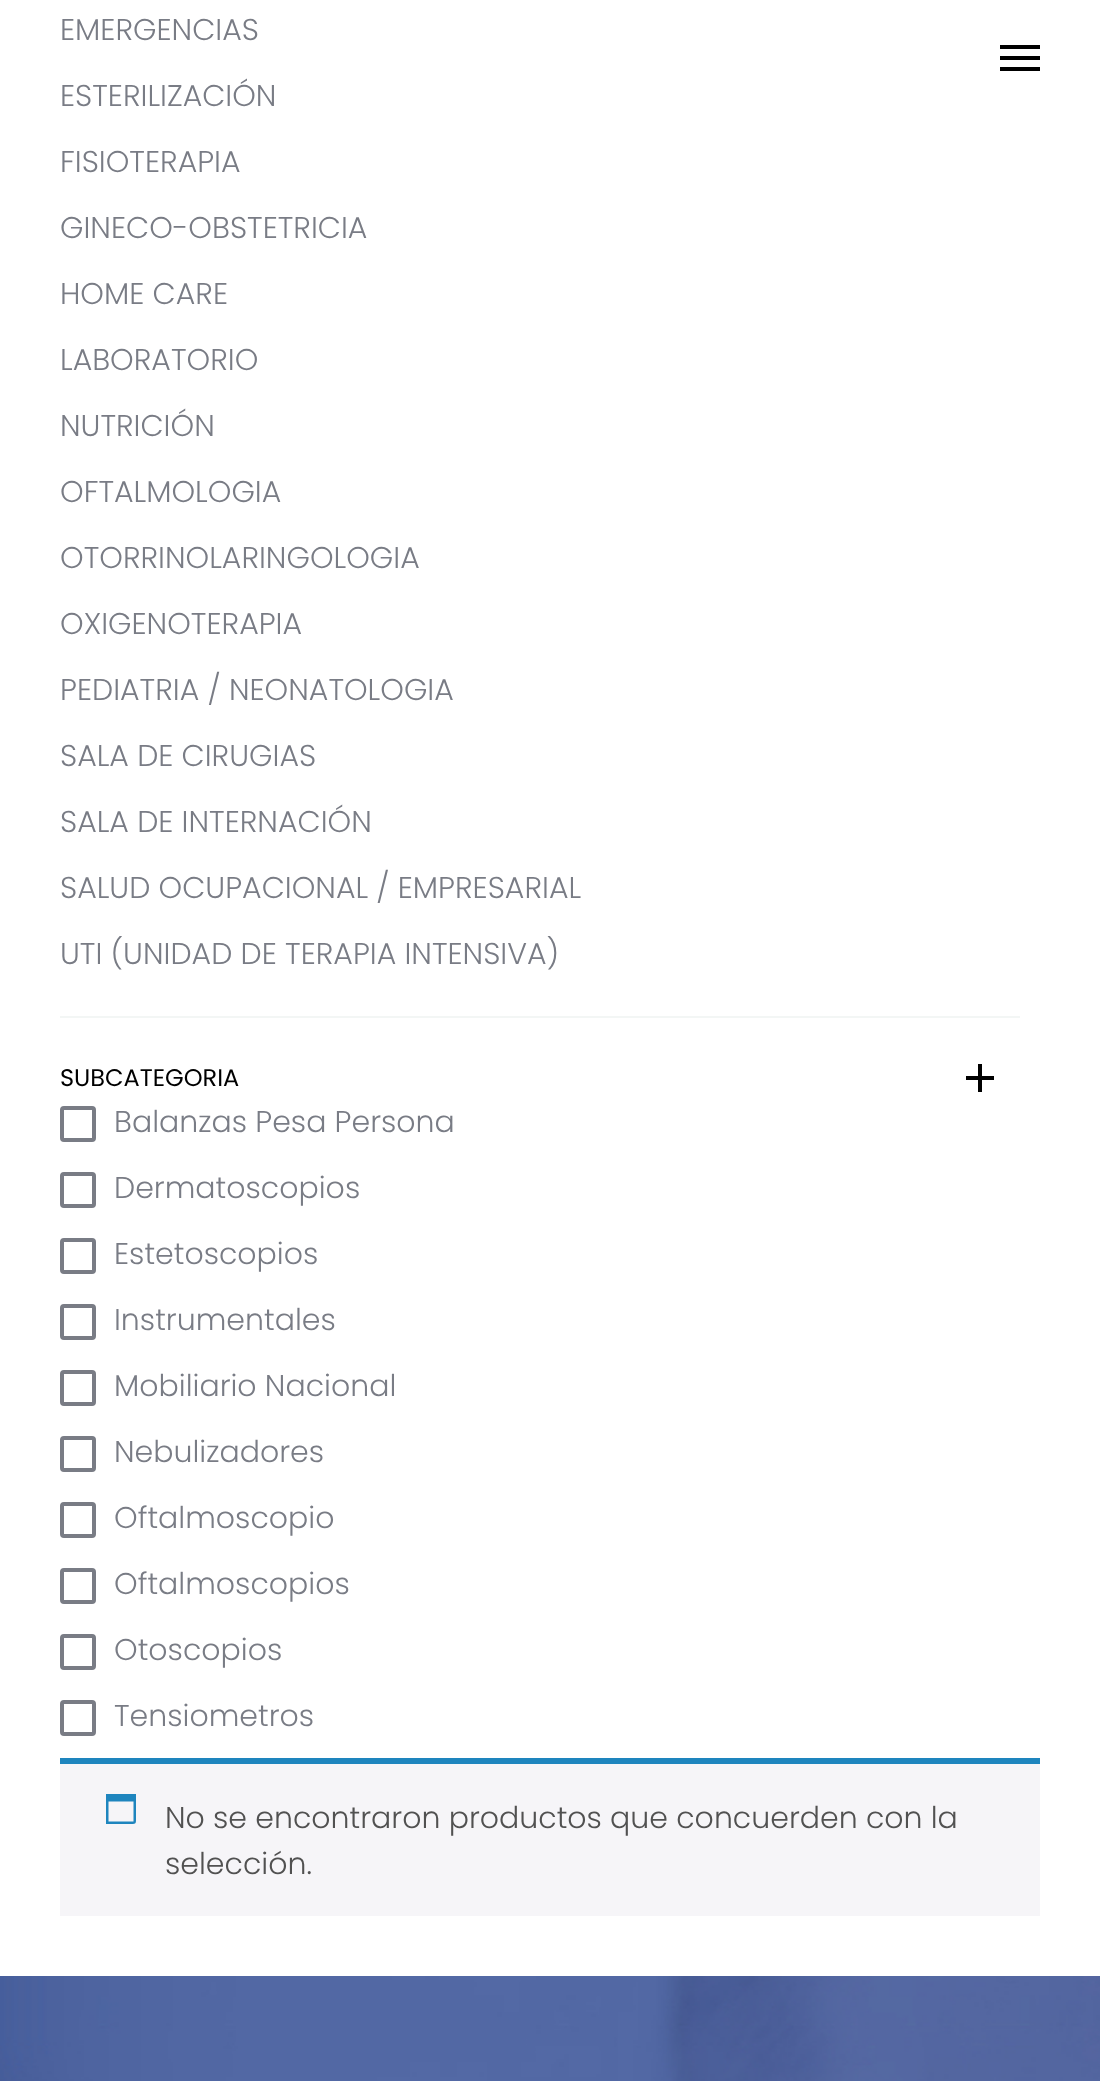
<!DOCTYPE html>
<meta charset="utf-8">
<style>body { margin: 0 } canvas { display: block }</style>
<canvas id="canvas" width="1100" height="2081"></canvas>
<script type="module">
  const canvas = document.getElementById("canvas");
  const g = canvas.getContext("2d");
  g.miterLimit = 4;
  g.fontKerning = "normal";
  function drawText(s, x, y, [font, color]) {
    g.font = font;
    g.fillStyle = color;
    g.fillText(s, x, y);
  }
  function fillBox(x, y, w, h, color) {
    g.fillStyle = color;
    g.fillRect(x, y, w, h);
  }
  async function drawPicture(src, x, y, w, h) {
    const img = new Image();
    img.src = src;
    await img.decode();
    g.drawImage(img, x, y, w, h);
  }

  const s1 = ["300 30px Poppins", "#797C85"];
  const s2 = ["24px Poppins", "#000000"];
  const s3 = ["300 30px Poppins", "#515151"];

  fillBox(0, 0, 1100, 2081, "#FFFFFF");
  drawText("EMERGENCIAS", 60, 40, s1);
  drawText("ESTERILIZACIÓN", 60, 106, s1);
  drawText("FISIOTERAPIA", 60, 172, s1);
  drawText("GINECO-OBSTETRICIA", 60, 238, s1);
  drawText("HOME CARE", 60, 304, s1);
  drawText("LABORATORIO", 60, 370, s1);
  drawText("NUTRICIÓN", 60, 436, s1);
  drawText("OFTALMOLOGIA", 60, 502, s1);
  drawText("OTORRINOLARINGOLOGIA", 60, 568, s1);
  drawText("OXIGENOTERAPIA", 60, 634, s1);
  drawText("PEDIATRIA / NEONATOLOGIA", 60, 700, s1);
  drawText("SALA DE CIRUGIAS", 60, 766, s1);
  drawText("SALA DE INTERNACIÓN", 60, 832, s1);
  drawText("SALUD OCUPACIONAL / EMPRESARIAL", 60, 898, s1);
  drawText("UTI (UNIDAD DE TERAPIA INTENSIVA)", 60, 964, s1);
  fillBox(60, 1016, 960, 2, "#F3F6F5");
  drawText("SUBCATEGORIA", 60, 1086, s2);
  await drawPicture("pic1.png", 966, 1064, 28, 28);
  g.beginPath();
  g.roundRect(62, 1108, 32, 32, 2);
  g.strokeStyle = "#797C85";
  g.lineWidth = 4;
  g.stroke();
  drawText("Balanzas Pesa Persona", 114, 1132, s1);
  g.beginPath();
  g.roundRect(62, 1174, 32, 32, 2);
  g.stroke();
  drawText("Dermatoscopios", 114, 1198, s1);
  g.beginPath();
  g.roundRect(62, 1240, 32, 32, 2);
  g.stroke();
  drawText("Estetoscopios", 114, 1264, s1);
  g.beginPath();
  g.roundRect(62, 1306, 32, 32, 2);
  g.stroke();
  drawText("Instrumentales", 114, 1330, s1);
  g.beginPath();
  g.roundRect(62, 1372, 32, 32, 2);
  g.stroke();
  drawText("Mobiliario Nacional", 114, 1396, s1);
  g.beginPath();
  g.roundRect(62, 1438, 32, 32, 2);
  g.stroke();
  drawText("Nebulizadores", 114, 1462, s1);
  g.beginPath();
  g.roundRect(62, 1504, 32, 32, 2);
  g.stroke();
  drawText("Oftalmoscopio", 114, 1528, s1);
  g.beginPath();
  g.roundRect(62, 1570, 32, 32, 2);
  g.stroke();
  drawText("Oftalmoscopios", 114, 1594, s1);
  g.beginPath();
  g.roundRect(62, 1636, 32, 32, 2);
  g.stroke();
  drawText("Otoscopios", 114, 1660, s1);
  g.beginPath();
  g.roundRect(62, 1702, 32, 32, 2);
  g.stroke();
  drawText("Tensiometros", 114, 1726, s1);
  fillBox(60, 1764, 980, 152, "#F6F5F8");
  fillBox(60, 1758, 980, 6, "#1E85BE");
  g.beginPath();
  g.moveTo(133.5, 1801.5);
  g.lineTo(108.5, 1801.5);
  g.lineTo(108.5, 1821.5);
  g.lineTo(133.5, 1821.5);
  g.closePath();
  g.moveTo(136, 1794);
  g.lineTo(136, 1817);
  g.bezierCurveTo(136, 1824.5, 136.5, 1824, 129, 1824);
  g.lineTo(106, 1824);
  g.lineTo(106, 1794);
  g.closePath();
  g.fill();
  drawText("No se encontraron productos que concuerden con la", 165, 1828, s3);
  drawText("selección.", 165, 1874, s3);
  g.fillStyle = "#000000";
  g.beginPath();
  g.moveTo(1000, 71);
  g.lineTo(1040, 71);
  g.lineTo(1040, 67);
  g.lineTo(1000, 67);
  g.closePath();
  g.moveTo(1000, 60);
  g.lineTo(1040, 60);
  g.lineTo(1040, 56);
  g.lineTo(1000, 56);
  g.closePath();
  g.moveTo(1000, 45);
  g.lineTo(1000, 49);
  g.lineTo(1040, 49);
  g.lineTo(1040, 45);
  g.closePath();
  g.fill();
  await drawPicture("pic2.png", 0, 1976, 1100, 105);
</script>
